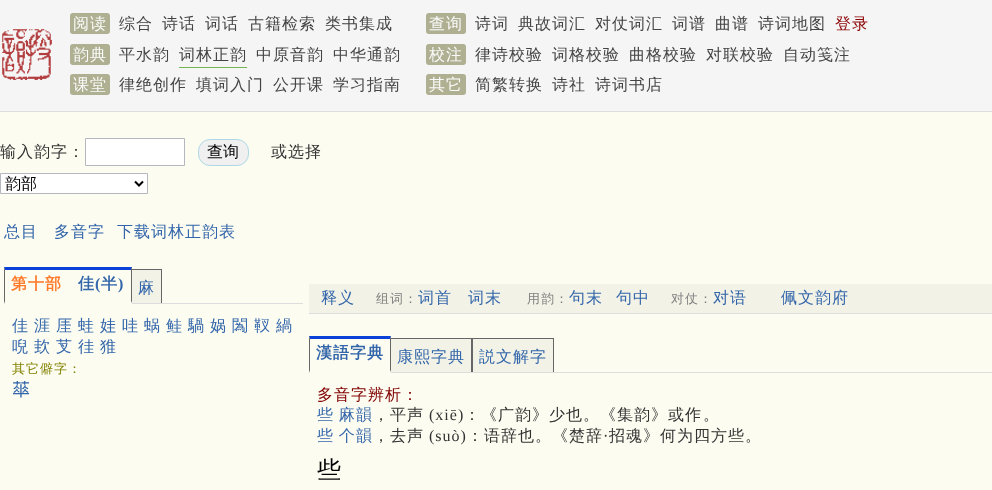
<!DOCTYPE html>
<meta charset="utf-8">
<style>body { margin: 0 } canvas { display: block }</style>
<canvas id="canvas" width="992" height="490"></canvas>
<script type="module">
  const canvas = document.getElementById("canvas");
  const g = canvas.getContext("2d");
  g.miterLimit = 4;
  g.fontKerning = "normal";
  function drawText(s, x, y, [font, color]) {
    g.font = font;
    g.fillStyle = color;
    g.fillText(s, x, y);
  }
  function fillBox(x, y, w, h, color) {
    g.fillStyle = color;
    g.fillRect(x, y, w, h);
  }
  function fillRounded(x, y, w, h, r, color) {
    g.fillStyle = color;
    g.beginPath();
    g.roundRect(x, y, w, h, r);
    g.fill();
  }
  async function drawPicture(src, x, y, w, h) {
    const img = new Image();
    img.src = src;
    await img.decode();
    g.drawImage(img, x, y, w, h);
  }

  const s1 = ["500 16px WenQuanYi Zen Hei", "#FBFBFB"];
  const s2 = ["500 16px WenQuanYi Zen Hei", "#444444"];
  const s3 = ["500 16px WenQuanYi Zen Hei", "#8B0000"];
  const s4 = ["500 16px WenQuanYi Zen Hei", "#333333"];
  const s5 = ["500 16px WenQuanYi Zen Hei", "#000000"];
  const s6 = ["500 16px WenQuanYi Zen Hei", "#3366AA"];
  const s7 = ["bold 16px WenQuanYi Zen Hei", "#FF7A2A"];
  const s8 = ["bold 16px WenQuanYi Zen Hei", "#3366AA"];
  const s9 = ["bold 16px Liberation Serif", "#3366AA"];
  const s10 = ["500 13px WenQuanYi Zen Hei", "#808000"];
  const s11 = ["18px Chiron Hei HK", "#3366AA"];
  const s12 = ["500 13px WenQuanYi Zen Hei", "#808080"];
  const s13 = ["500 16px WenQuanYi Zen Hei", "#800000"];
  const s14 = ["16px Liberation Serif", "#333333"];
  const s15 = ["500 24px WenQuanYi Zen Hei", "#000000"];

  fillBox(0, 0, 992, 490, "#FCFCF1");
  fillBox(0, 0, 992, 111, "#F5F5F5");
  fillBox(0, 111, 992, 1, "#DDDDDD");
  fillRounded(70, 13, 40, 21, 3, "#AFAF92");
  g.letterSpacing = "1px";
  drawText("阅读", 73, 29, s1);
  drawText("综合", 119, 29, s2);
  drawText("诗话", 162, 29, s2);
  drawText("词话", 205, 29, s2);
  drawText("古籍检索", 248, 29, s2);
  drawText("类书集成", 325, 29, s2);
  fillRounded(426, 13, 40, 21, 3, "#AFAF92");
  drawText("查询", 429, 29, s1);
  drawText("诗词", 475, 29, s2);
  drawText("典故词汇", 518, 29, s2);
  drawText("对仗词汇", 595, 29, s2);
  drawText("词谱", 672, 29, s2);
  drawText("曲谱", 715, 29, s2);
  drawText("诗词地图", 758, 29, s2);
  drawText("登录", 835, 29, s3);
  await drawPicture("pic1.png", 2, 29, 50, 51);
  fillRounded(70, 44, 40, 21, 3, "#AFAF92");
  drawText("韵典", 73, 60, s1);
  drawText("平水韵", 119, 60, s2);
  drawText("词林正韵", 179, 60, s2);
  fillBox(179, 67, 68, 1, "#72B352");
  drawText("中原音韵", 256, 60, s2);
  drawText("中华通韵", 333, 60, s2);
  fillRounded(426, 44, 40, 21, 3, "#AFAF92");
  drawText("校注", 429, 60, s1);
  drawText("律诗校验", 475, 60, s2);
  drawText("词格校验", 552, 60, s2);
  drawText("曲格校验", 629, 60, s2);
  drawText("对联校验", 706, 60, s2);
  drawText("自动笺注", 783, 60, s2);
  fillRounded(70, 74, 40, 21, 3, "#AFAF92");
  drawText("课堂", 73, 90, s1);
  drawText("律绝创作", 119, 90, s2);
  drawText("填词入门", 196, 90, s2);
  drawText("公开课", 273, 90, s2);
  drawText("学习指南", 333, 90, s2);
  fillRounded(426, 74, 40, 21, 3, "#AFAF92");
  drawText("其它", 429, 90, s1);
  drawText("简繁转换", 475, 90, s2);
  drawText("诗社", 552, 90, s2);
  drawText("诗词书店", 595, 90, s2);
  drawText("输入韵字：", 0, 157, s4);
  g.fillStyle = "#FFFFFF";
  g.beginPath();
  g.rect(85.5, 138.5, 99, 27);
  g.fill();
  g.strokeStyle = "#B4B7BE";
  g.stroke();
  g.fillStyle = "#F0F0F0";
  g.beginPath();
  g.roundRect(198.5, 139.5, 50, 26, 11.5);
  g.fill();
  g.strokeStyle = "#ADD8E6";
  g.stroke();
  g.letterSpacing = "0px";
  drawText("查询", 207, 157, s5);
  g.letterSpacing = "1px";
  drawText("或选择", 271, 157, s4);
  g.fillStyle = "#FFFFFF";
  g.beginPath();
  g.rect(0.5, 173.5, 147, 20);
  g.fill();
  g.strokeStyle = "#B4B7BE";
  g.stroke();
  g.beginPath();
  g.moveTo(135, 181.5);
  g.lineTo(139, 185.5);
  g.lineTo(143, 181.5);
  g.strokeStyle = "#000000";
  g.lineWidth = 2;
  g.stroke();
  g.letterSpacing = "0px";
  drawText("韵部", 5, 189, s5);
  g.letterSpacing = "1px";
  drawText("总目", 4, 237, s6);
  drawText("多音字", 54, 237, s6);
  drawText("下载词林正韵表", 117, 237, s6);
  fillBox(131, 269, 31, 1, "#666666");
  g.fillStyle = "#0941D9";
  g.beginPath();
  g.moveTo(4, 267);
  g.lineTo(132, 267);
  g.lineTo(131, 270);
  g.lineTo(5, 270);
  g.closePath();
  g.fill();
  fillBox(131, 270, 30, 33, "#F2F2E7");
  fillBox(4, 303, 299, 1, "#DDDDDD");
  g.fillStyle = "#666666";
  g.beginPath();
  g.moveTo(132, 267);
  g.lineTo(132, 304);
  g.lineTo(131, 301);
  g.lineTo(131, 270);
  g.closePath();
  g.fill();
  g.fillStyle = "#FCFCF1";
  g.beginPath();
  g.moveTo(132, 304);
  g.lineTo(4, 304);
  g.lineTo(5, 301);
  g.lineTo(131, 301);
  g.closePath();
  g.fill();
  g.fillStyle = "#666666";
  g.beginPath();
  g.moveTo(4, 304);
  g.lineTo(4, 267);
  g.lineTo(5, 270);
  g.lineTo(5, 301);
  g.closePath();
  g.fill();
  drawText("第十部", 11, 289, s7);
  drawText("佳", 78, 289, s8);
  drawText("(", 95, 289, s9);
  drawText("半", 101, 289, s8);
  drawText(")", 118, 289, s9);
  fillBox(161, 269, 1, 34, "#666666");
  drawText("麻", 138, 293, s6);
  drawText("佳", 12, 331, s6);
  drawText("涯", 34, 331, s6);
  drawText("厓", 56, 331, s6);
  drawText("蛙", 78, 331, s6);
  drawText("娃", 100, 331, s6);
  drawText("哇", 122, 331, s6);
  drawText("蜗", 144, 331, s6);
  drawText("鲑", 166, 331, s6);
  drawText("騧", 188, 331, s6);
  drawText("娲", 210, 331, s6);
  drawText("䦱", 232, 331, s6);
  drawText("靫", 254, 331, s6);
  drawText("緺", 276, 331, s6);
  drawText("唲", 12, 352, s6);
  drawText("㰪", 34, 352, s6);
  drawText("芆", 56, 352, s6);
  drawText("徍", 78, 352, s6);
  drawText("猚", 100, 352, s6);
  drawText("其它僻字：", 12, 373, s10);
  drawText("𦶎", 12, 396, s11);
  fillBox(309, 284, 683, 29, "#F2F2E7");
  fillBox(309, 313, 683, 1, "#DDDDDD");
  drawText("释义", 321, 303, s6);
  drawText("组词：", 376, 303, s12);
  drawText("词首", 418, 303, s6);
  drawText("词末", 468, 303, s6);
  drawText("用韵：", 527, 303, s12);
  drawText("句末", 569, 303, s6);
  drawText("句中", 616, 303, s6);
  drawText("对仗：", 671, 303, s12);
  drawText("对语", 713, 303, s6);
  drawText("佩文韵府", 781, 303, s6);
  fillBox(390, 338, 164, 1, "#666666");
  g.fillStyle = "#0941D9";
  g.beginPath();
  g.moveTo(309, 336);
  g.lineTo(391, 336);
  g.lineTo(390, 339);
  g.lineTo(310, 339);
  g.closePath();
  g.fill();
  fillBox(390, 339, 81, 33, "#F2F2E7");
  fillBox(309, 372, 683, 1, "#DDDDDD");
  g.fillStyle = "#666666";
  g.beginPath();
  g.moveTo(391, 336);
  g.lineTo(391, 373);
  g.lineTo(390, 370);
  g.lineTo(390, 339);
  g.closePath();
  g.fill();
  g.fillStyle = "#FCFCF1";
  g.beginPath();
  g.moveTo(391, 373);
  g.lineTo(309, 373);
  g.lineTo(310, 370);
  g.lineTo(390, 370);
  g.closePath();
  g.fill();
  g.fillStyle = "#666666";
  g.beginPath();
  g.moveTo(309, 373);
  g.lineTo(309, 336);
  g.lineTo(310, 339);
  g.lineTo(310, 370);
  g.closePath();
  g.fill();
  drawText("漢語字典", 316, 358, s8);
  fillBox(471, 338, 2, 34, "#666666");
  drawText("康熙字典", 397, 362, s6);
  fillBox(473, 339, 80, 33, "#F2F2E7");
  fillBox(553, 338, 1, 34, "#666666");
  drawText("説文解字", 479, 362, s6);
  drawText("多音字辨析：", 317, 400, s13);
  g.wordSpacing = "-1px";
  drawText("些 麻韻", 317, 420, s6);
  g.wordSpacing = "0px";
  drawText("，平声", 373, 420, s4);
  drawText("(xiē)", 429, 420, s14);
  drawText("：《广韵》少也。《集韵》或作", 464, 420, s4);
  drawText("。", 703, 420, s4);
  g.wordSpacing = "-1px";
  drawText("些 个韻", 317, 441, s6);
  g.wordSpacing = "0px";
  drawText("，去声", 373, 441, s4);
  drawText("(suò)", 429, 441, s14);
  drawText("：语辞也。《楚辞", 467, 441, s4);
  drawText("·", 603, 441, s14);
  drawText("招魂》何为四方些。", 609, 441, s4);
  drawText("些", 317, 478, s15);
</script>
